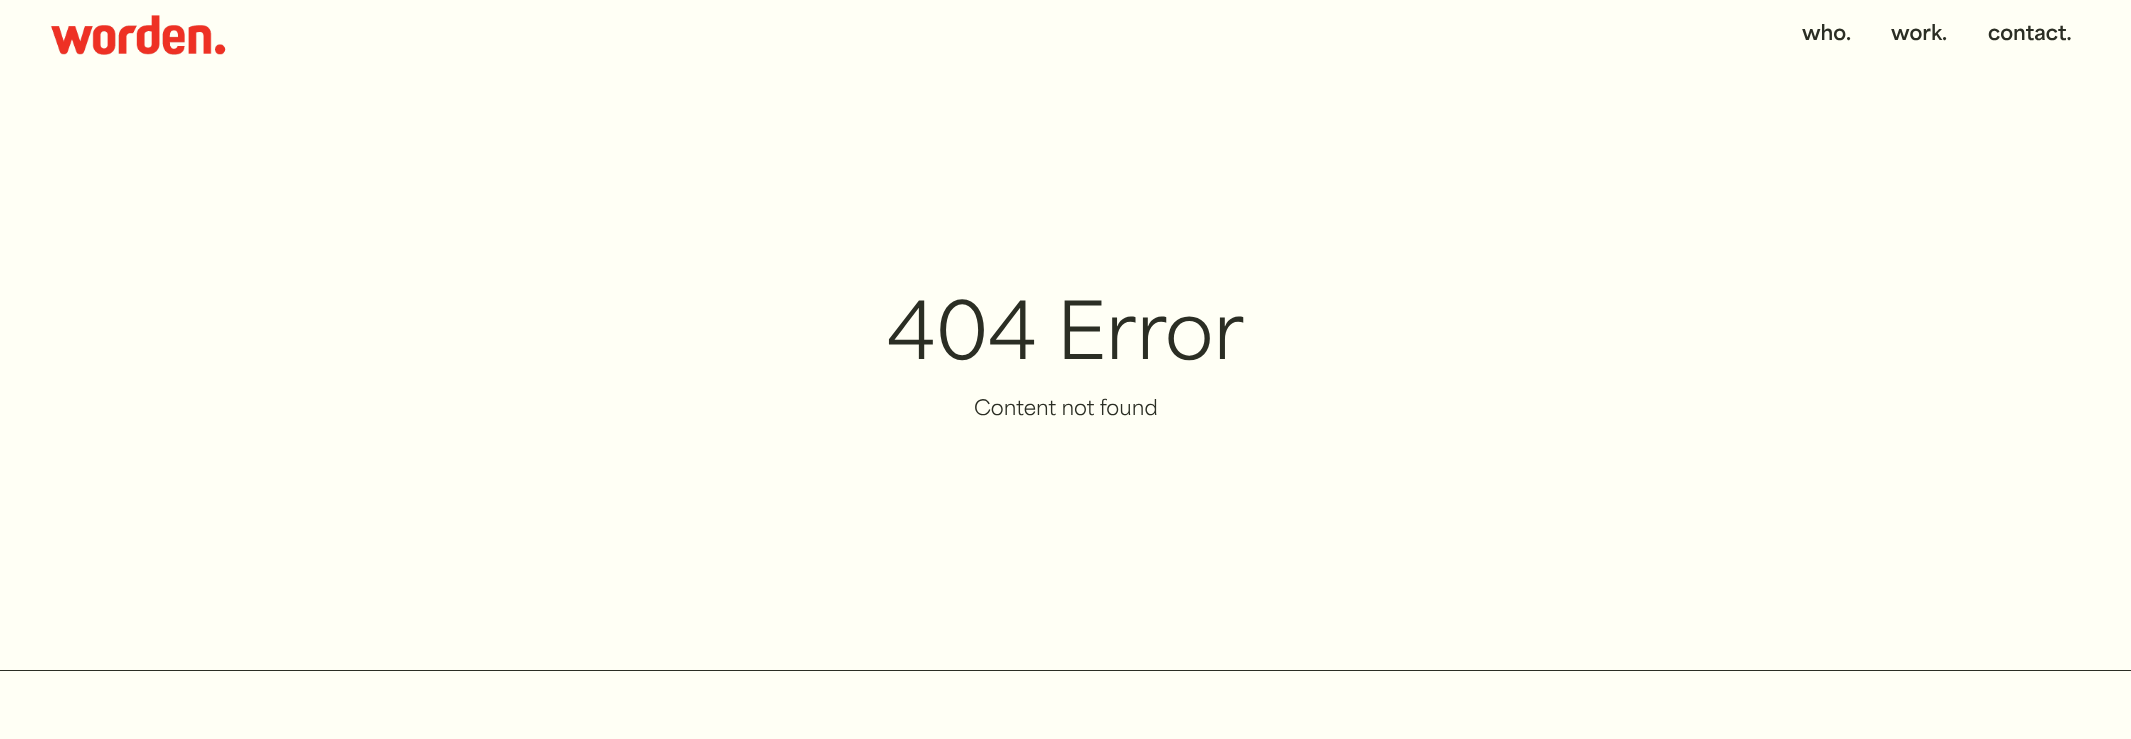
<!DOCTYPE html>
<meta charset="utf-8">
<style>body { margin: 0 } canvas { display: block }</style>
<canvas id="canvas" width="2131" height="739"></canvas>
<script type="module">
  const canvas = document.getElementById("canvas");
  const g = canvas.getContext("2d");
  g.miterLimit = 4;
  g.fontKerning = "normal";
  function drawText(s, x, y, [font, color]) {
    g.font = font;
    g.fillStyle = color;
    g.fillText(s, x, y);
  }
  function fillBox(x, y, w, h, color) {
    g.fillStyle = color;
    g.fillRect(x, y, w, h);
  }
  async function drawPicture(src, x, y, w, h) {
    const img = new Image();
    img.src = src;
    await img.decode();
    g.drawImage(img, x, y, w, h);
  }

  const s1 = ["bold 20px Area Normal", "#2B2E24"];
  const s2 = ["75px Area Normal", "#2B2E24"];
  const s3 = ["20px Area Normal", "#2B2E24"];

  fillBox(0, 0, 2131, 739, "#FFFFF5");
  await drawPicture("pic1.png", 50, 15, 176, 40);
  drawText("who.", 1802, 40, s1);
  drawText("work.", 1891, 40, s1);
  drawText("contact.", 1988, 40, s1);
  drawText("404 Error", 887, 359, s2);
  drawText("Content not found", 974, 415, s3);
  fillBox(0, 670, 2131, 1, "#2B2E24");
</script>
